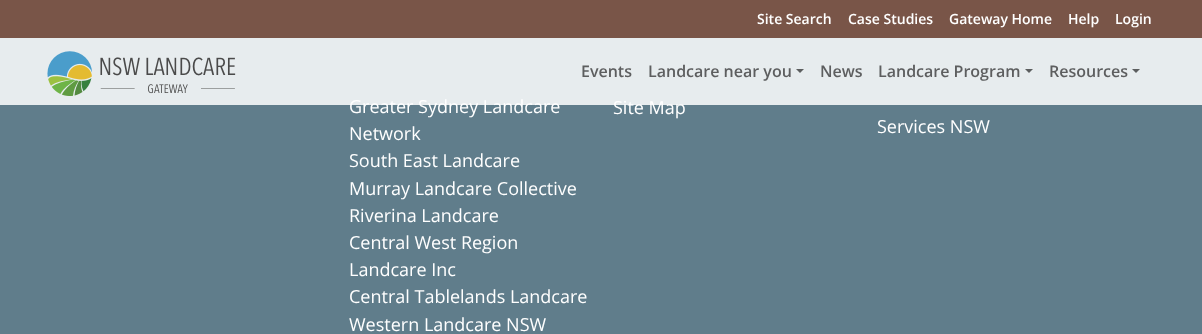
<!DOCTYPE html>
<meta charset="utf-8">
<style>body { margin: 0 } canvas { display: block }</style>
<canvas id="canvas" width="1202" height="334"></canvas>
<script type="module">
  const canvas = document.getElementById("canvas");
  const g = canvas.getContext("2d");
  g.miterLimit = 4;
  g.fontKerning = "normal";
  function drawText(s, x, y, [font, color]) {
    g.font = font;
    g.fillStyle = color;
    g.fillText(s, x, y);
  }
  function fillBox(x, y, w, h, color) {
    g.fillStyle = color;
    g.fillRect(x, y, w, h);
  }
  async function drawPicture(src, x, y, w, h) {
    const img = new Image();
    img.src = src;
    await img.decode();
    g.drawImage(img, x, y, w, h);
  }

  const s1 = ["600 14px Open Sans", "#FFFFFF"];
  const s2 = ["18px Open Sans", "#FFFFFF"];
  const s3 = ["600 16px Open Sans", "#5D5E5F"];

  fillBox(0, 0, 1202, 334, "#607D8B");
  fillBox(0, 0, 1202, 38, "#795548");
  drawText("Site Search", 757, 24, s1);
  drawText("Case Studies", 848, 24, s1);
  drawText("Gateway Home", 949, 24, s1);
  drawText("Help", 1068, 24, s1);
  drawText("Login", 1115, 24, s1);
  drawText("Greater Sydney Landcare", 349, 113, s2);
  drawText("Site Map", 613, 114, s2);
  fillBox(0, 38, 1202, 67, "rgba(255, 255, 255, 0.85)");
  await drawPicture("pic1.png", 47, 51, 189, 45);
  drawText("Events", 581, 77, s3);
  drawText("Landcare near you", 648, 77, s3);
  g.fillStyle = "#5C5E5F";
  g.beginPath();
  g.moveTo(796, 69);
  g.lineTo(804, 69);
  g.lineTo(800, 73);
  g.closePath();
  g.fill();
  drawText("News", 820, 77, s3);
  drawText("Landcare Program", 878, 77, s3);
  g.fillStyle = "#5C5E5F";
  g.beginPath();
  g.moveTo(1025, 69);
  g.lineTo(1033, 69);
  g.lineTo(1029, 73);
  g.closePath();
  g.fill();
  drawText("Resources", 1049, 77, s3);
  g.fillStyle = "#5C5E5F";
  g.beginPath();
  g.moveTo(1132, 69);
  g.lineTo(1140, 69);
  g.lineTo(1136, 73);
  g.closePath();
  g.fill();
  drawText("Network", 349, 140, s2);
  drawText("South East Landcare", 349, 167, s2);
  drawText("Murray Landcare Collective", 349, 195, s2);
  drawText("Riverina Landcare", 349, 222, s2);
  drawText("Central West Region", 349, 249, s2);
  drawText("Landcare Inc", 349, 276, s2);
  drawText("Central Tablelands Landcare", 349, 303, s2);
  drawText("Western Landcare NSW", 349, 331, s2);
  drawText("Services NSW", 877, 133, s2);
</script>
